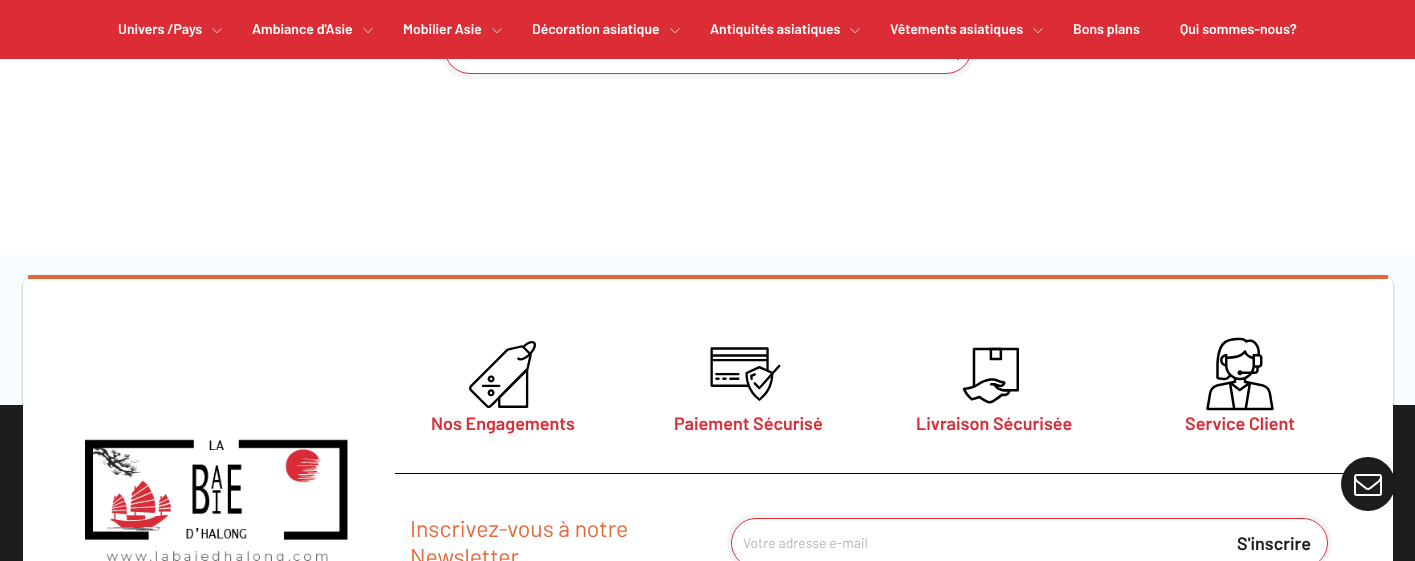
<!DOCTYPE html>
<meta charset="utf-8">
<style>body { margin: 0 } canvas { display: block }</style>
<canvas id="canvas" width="1415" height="561"></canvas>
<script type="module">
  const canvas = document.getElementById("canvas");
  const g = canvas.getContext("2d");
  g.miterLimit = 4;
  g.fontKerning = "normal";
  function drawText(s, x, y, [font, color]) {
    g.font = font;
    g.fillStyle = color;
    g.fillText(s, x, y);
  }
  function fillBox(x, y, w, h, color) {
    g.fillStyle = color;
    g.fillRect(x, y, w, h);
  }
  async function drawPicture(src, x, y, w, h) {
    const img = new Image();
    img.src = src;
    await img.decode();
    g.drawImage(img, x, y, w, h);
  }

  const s1 = ["600 14px Barlow", "#FFFFFF"];
  const s2 = ["600 18px Barlow", "#D92C37"];
  const s3 = ["23px Barlow", "#E46A3A"];
  const s4 = ["14px Barlow", "#B7B7B7"];
  const s5 = ["600 18px Barlow", "#1D1D1B"];

  fillBox(0, 0, 1415, 561, "#F6FCFF");
  fillBox(0, 59, 1415, 196, "#FFFFFF");
  g.beginPath();
  g.roundRect(441.5, 19.5, 533, 57, 28.5);
  g.strokeStyle = "#F5F5F5";
  g.lineWidth = 5;
  g.stroke();
  g.beginPath();
  g.roundRect(444.5, 22.5, 527, 51, 25.5);
  g.fill();
  g.strokeStyle = "#DC2D36";
  g.lineWidth = 1;
  g.stroke();
  await drawPicture("pic1.png", 957, 59, 2, 1);
  fillBox(0, 0, 1415, 59, "#DC2D36");
  drawText("Univers /Pays", 118, 34, s1);
  await drawPicture("pic2.png", 212, 28, 10, 6);
  drawText("Ambiance d'Asie", 252, 34, s1);
  await drawPicture("pic2.png", 363, 28, 10, 6);
  drawText("Mobilier Asie", 403, 34, s1);
  await drawPicture("pic2.png", 492, 28, 10, 6);
  drawText("Décoration asiatique", 532, 34, s1);
  await drawPicture("pic2.png", 670, 28, 10, 6);
  drawText("Antiquités asiatiques", 710, 34, s1);
  await drawPicture("pic2.png", 850, 28, 10, 6);
  drawText("Vêtements asiatiques", 890, 34, s1);
  await drawPicture("pic2.png", 1033, 28, 10, 6);
  drawText("Bons plans", 1073, 34, s1);
  drawText("Qui sommes-nous?", 1180, 34, s1);
  fillBox(0, 405, 1415, 156, "#1D1D1B");
  g.save();
  g.beginPath();
  g.moveTo(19, 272);
  g.lineTo(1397, 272);
  g.lineTo(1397, 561);
  g.lineTo(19, 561);
  g.closePath();
  g.moveTo(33, 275);
  g.lineTo(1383, 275);
  g.bezierCurveTo(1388.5, 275, 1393, 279.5, 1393, 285);
  g.lineTo(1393, 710);
  g.bezierCurveTo(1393, 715.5, 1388.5, 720, 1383, 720);
  g.lineTo(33, 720);
  g.bezierCurveTo(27.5, 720, 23, 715.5, 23, 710);
  g.lineTo(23, 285);
  g.bezierCurveTo(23, 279.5, 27.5, 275, 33, 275);
  g.closePath();
  g.clip("evenodd");
  g.fillStyle = "rgba(0, 0, 0, 0.24)";
  g.filter = "blur(1px)";
  g.beginPath();
  g.roundRect(23, 276, 1370, 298, 10);
  g.fill();
  g.filter = "none";
  g.restore();
  g.save();
  g.beginPath();
  g.moveTo(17, 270);
  g.lineTo(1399, 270);
  g.lineTo(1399, 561);
  g.lineTo(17, 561);
  g.closePath();
  g.moveTo(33, 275);
  g.lineTo(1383, 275);
  g.bezierCurveTo(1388.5, 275, 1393, 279.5, 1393, 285);
  g.lineTo(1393, 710);
  g.bezierCurveTo(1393, 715.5, 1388.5, 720, 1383, 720);
  g.lineTo(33, 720);
  g.bezierCurveTo(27.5, 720, 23, 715.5, 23, 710);
  g.lineTo(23, 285);
  g.bezierCurveTo(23, 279.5, 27.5, 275, 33, 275);
  g.closePath();
  g.clip("evenodd");
  g.fillStyle = "rgba(0, 0, 0, 0.12)";
  g.filter = "blur(1.5px)";
  g.beginPath();
  g.roundRect(23, 276, 1370, 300, 10);
  g.fill();
  g.filter = "none";
  g.restore();
  g.fillStyle = "#FFFFFF";
  g.beginPath();
  g.moveTo(33, 279);
  g.lineTo(1383, 279);
  g.bezierCurveTo(1389, 279, 1393, 282, 1393, 285);
  g.lineTo(1393, 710);
  g.bezierCurveTo(1393, 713, 1389, 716, 1383, 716);
  g.lineTo(33, 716);
  g.bezierCurveTo(27, 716, 23, 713, 23, 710);
  g.lineTo(23, 285);
  g.bezierCurveTo(23, 282, 27, 279, 33, 279);
  g.closePath();
  g.fill();
  fillBox(28, 275, 1360, 4, "#E46837");
  await drawPicture("pic3.png", 85, 439, 263, 122);
  fillBox(395, 473, 953, 1, "#000000");
  await drawPicture("pic4.png", 469, 341, 67, 67);
  drawText("Nos Engagements", 431, 430, s2);
  await drawPicture("pic5.png", 710, 347, 71, 54);
  drawText("Paiement Sécurisé", 674, 430, s2);
  await drawPicture("pic6.png", 962, 347, 57, 57);
  drawText("Livraison Sécurisée", 916, 430, s2);
  await drawPicture("pic7.png", 1206, 337, 68, 74);
  drawText("Service Client", 1185, 430, s2);
  drawText("Inscrivez-vous à notre", 410, 537, s3);
  drawText("Newsletter", 410, 565, s3);
  g.beginPath();
  g.roundRect(729, 516, 601, 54, 27);
  g.strokeStyle = "#F4F4F4";
  g.lineWidth = 4;
  g.stroke();
  g.fillStyle = "#FFFFFF";
  g.beginPath();
  g.roundRect(731.5, 518.5, 596, 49, 24.5);
  g.fill();
  g.strokeStyle = "#DC2D36";
  g.lineWidth = 1;
  g.stroke();
  drawText("Votre adresse e-mail", 743, 548, s4);
  drawText("S'inscrire", 1237, 550, s5);
  g.beginPath();
  g.arc(1368, 484, 27, 0, Math.PI * 2);
  g.fill();
  await drawPicture("pic8.png", 1354, 474, 28, 22);
</script>
